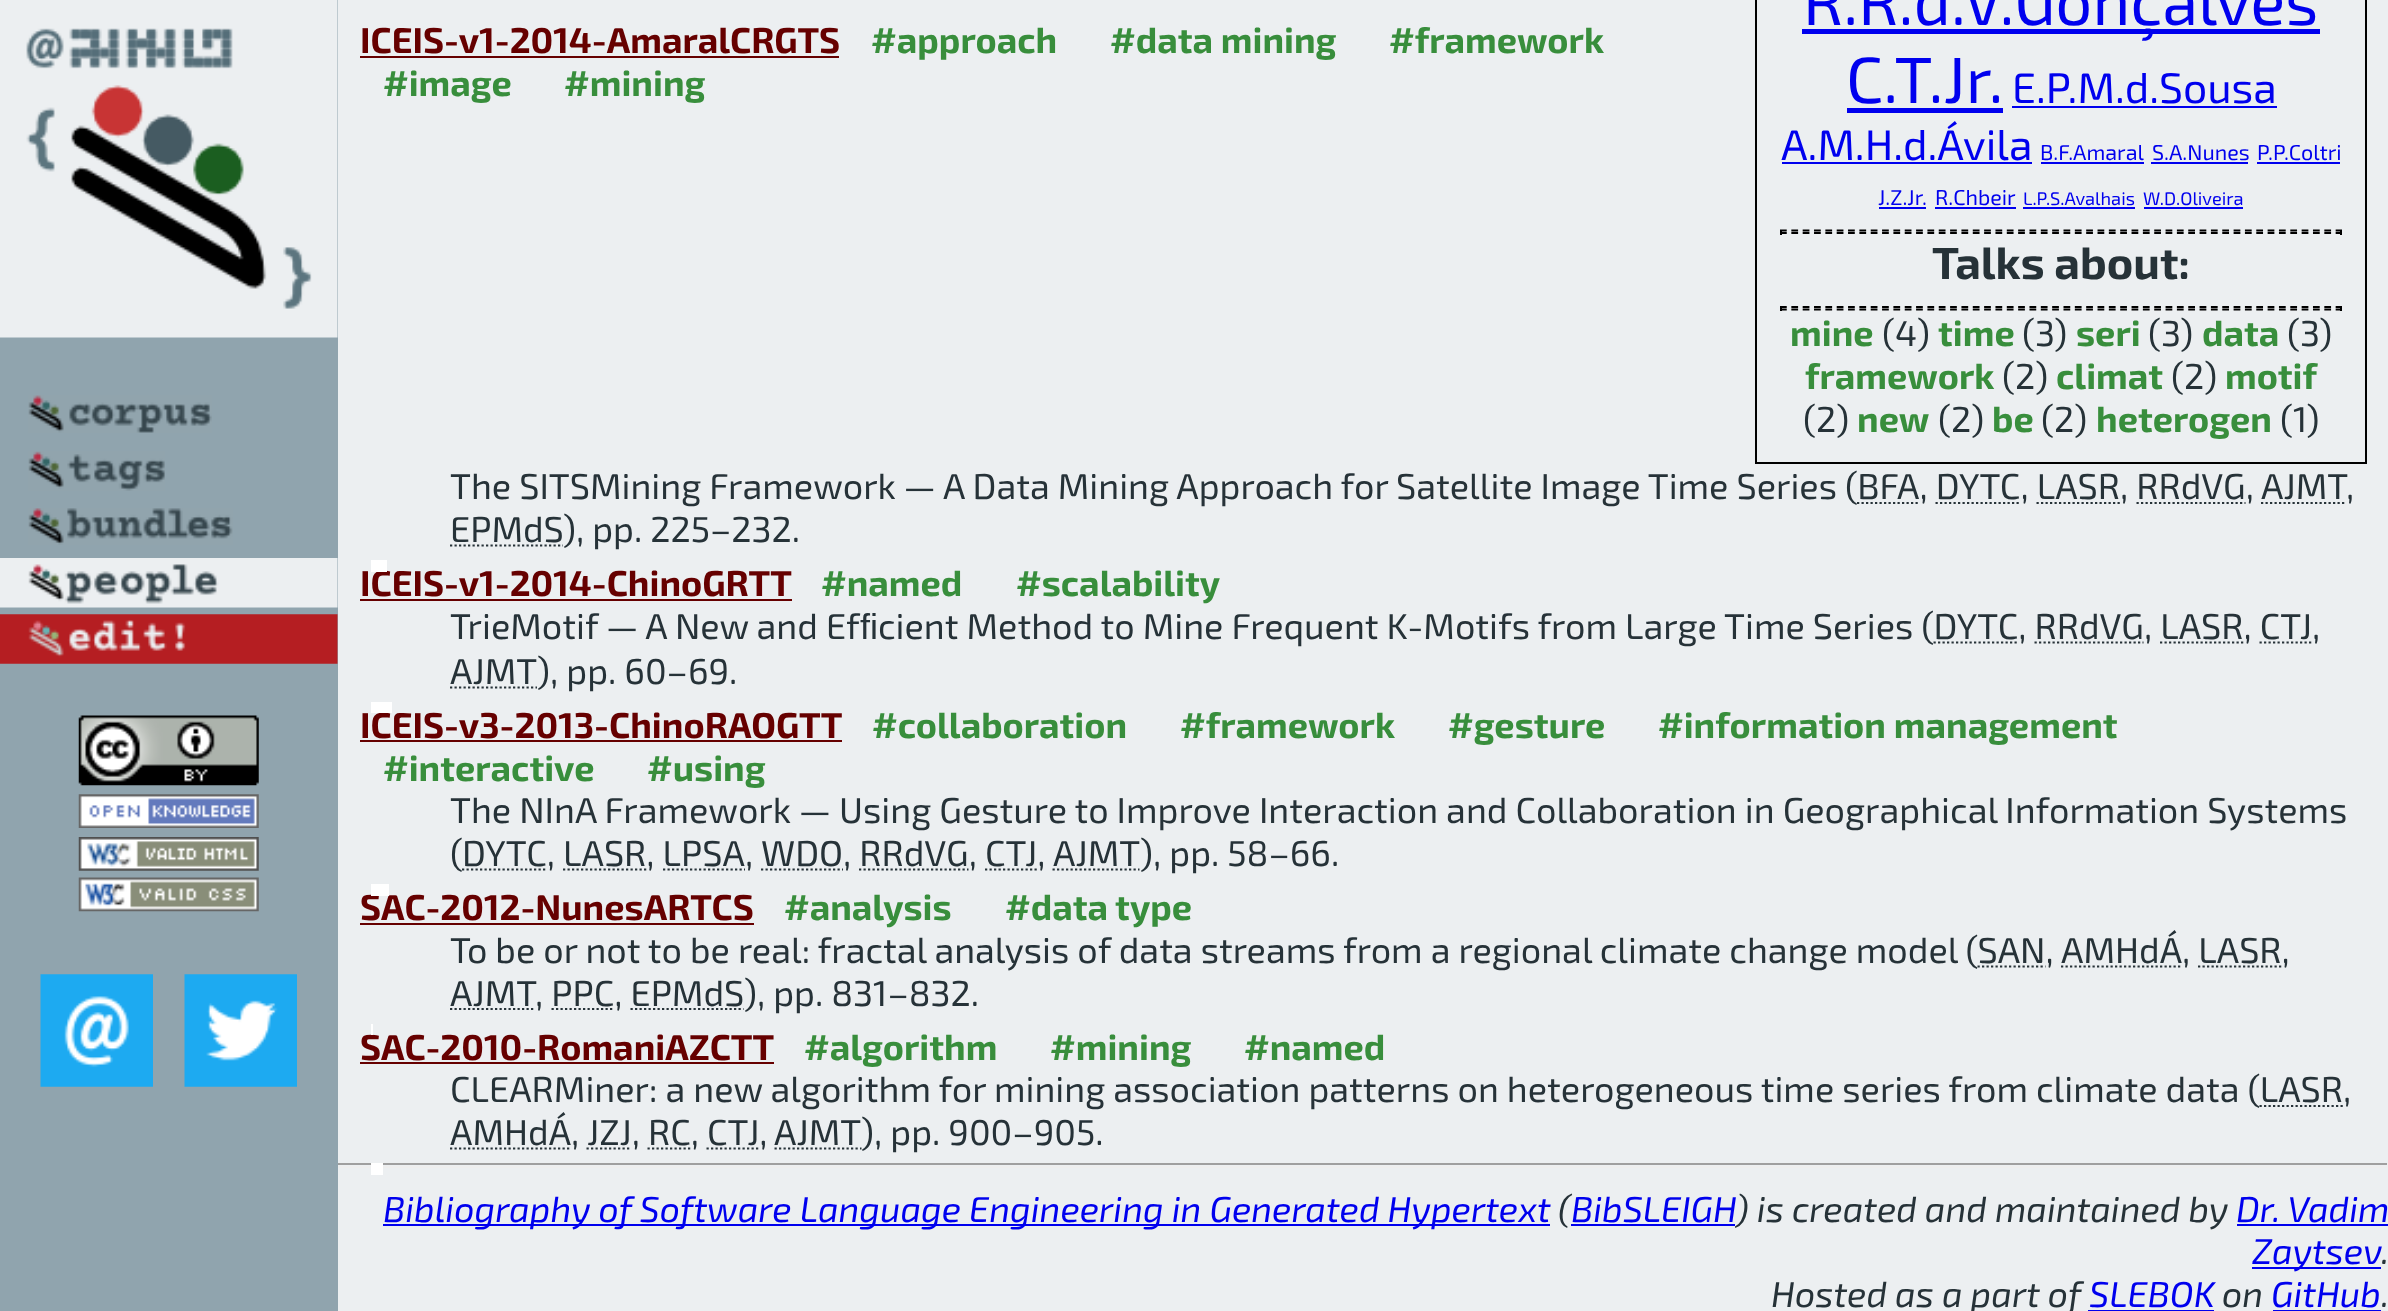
<!DOCTYPE html>
<meta charset="utf-8">
<style>body { margin: 0 } canvas { display: block }</style>
<canvas id="canvas" width="2388" height="1311"></canvas>
<script type="module">
  const canvas = document.getElementById("canvas");
  const g = canvas.getContext("2d");
  g.miterLimit = 4;
  g.fontKerning = "normal";
  function drawText(s, x, y, [font, color]) {
    g.font = font;
    g.fillStyle = color;
    g.fillText(s, x, y);
  }
  function fillBox(x, y, w, h, color) {
    g.fillStyle = color;
    g.fillRect(x, y, w, h);
  }
  async function drawPicture(src, x, y, w, h) {
    const img = new Image();
    img.src = src;
    await img.decode();
    g.drawImage(img, x, y, w, h);
  }

  const s1 = ["65.25px 'Exo 2'", "#0000EE"];
  const s2 = ["42.75px 'Exo 2'", "#0000EE"];
  const s3 = ["21.5px 'Exo 2'", "#0000EE"];
  const s4 = ["18.25px 'Exo 2'", "#0000EE"];
  const s5 = ["bold 45px 'Exo 2'", "#263238"];
  const s6 = ["bold 36px 'Exo 2'", "#388E3C"];
  const s7 = ["36px 'Exo 2'", "#263238"];
  const s8 = ["bold 36px 'Exo 2'", "#660000"];
  const s9 = ["36px Liberation Sans", "#263238"];
  const s10 = ["italic 36px 'Exo 2'", "#0000EE"];
  const s11 = ["italic 36px 'Exo 2'", "#263238"];

  fillBox(0, 0, 2388, 1311, "#ECEFF1");
  fillBox(0, 0, 338, 1311, "#90A4AE");
  await drawPicture("pic1.png", 0, 0, 338, 338);
  await drawPicture("pic2.png", 28, 395, 184, 38);
  await drawPicture("pic3.png", 28, 451, 137, 40);
  await drawPicture("pic4.png", 28, 508, 205, 37);
  await drawPicture("pic5.png", 0, 558, 338, 50);
  await drawPicture("pic6.png", 0, 614, 338, 50);
  await drawPicture("pic7.png", 78, 715, 181, 71);
  await drawPicture("pic8.png", 78, 794, 181, 34);
  await drawPicture("pic9.png", 78, 837, 181, 34);
  await drawPicture("pic10.png", 78, 877, 181, 35);
  await drawPicture("pic11.png", 40, 974, 113, 113);
  await drawPicture("pic12.png", 184, 974, 113, 113);
  g.strokeStyle = "#000000";
  g.lineWidth = 2;
  g.strokeRect(1756, -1, 610, 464);
  fillBox(1802, 29, 518, 5, "#0000EE");
  drawText("R.R.d.V.Gonçalves", 1803, 25, s1);
  drawText("C.T.Jr.", 1846, 103, s1);
  fillBox(1847, 108, 156, 5, "#0000EE");
  drawText("E.P.M.d.Sousa", 2012, 103, s2);
  fillBox(2012, 106, 265, 2, "#0000EE");
  drawText("A.M.H.d.Ávila", 1781, 160, s2);
  fillBox(1782, 162, 250, 2, "#0000EE");
  drawText("B.F.Amaral", 2040, 160, s3);
  fillBox(2041, 162, 103, 2, "#0000EE");
  drawText("S.A.Nunes", 2152, 160, s3);
  fillBox(2151, 162, 97, 2, "#0000EE");
  drawText("P.P.Coltri", 2257, 160, s3);
  fillBox(2257, 162, 83, 2, "#0000EE");
  drawText("J.Z.Jr.", 1878, 205, s3);
  fillBox(1879, 207, 47, 2, "#0000EE");
  drawText("R.Chbeir", 1935, 205, s3);
  fillBox(1935, 207, 81, 2, "#0000EE");
  drawText("L.P.S.Avalhais", 2023, 205, s4);
  fillBox(2023, 207, 112, 2, "#0000EE");
  drawText("W.D.Oliveira", 2143, 205, s4);
  fillBox(2144, 207, 99, 2, "#0000EE");
  g.beginPath();
  g.moveTo(1780, 230.5);
  g.lineTo(2342, 230.5);
  g.lineWidth = 2.2;
  g.setLineDash([6.75, 4.59]);
  g.stroke();
  fillBox(2340, 230, 2, 5, "#000000");
  g.beginPath();
  g.moveTo(1780, 233);
  g.lineTo(2342, 233);
  g.stroke();
  fillBox(1780, 230, 2, 5, "#000000");
  drawText("Talks about:", 1932, 279, s5);
  g.beginPath();
  g.moveTo(1780, 307);
  g.lineTo(2342, 307);
  g.stroke();
  fillBox(2340, 306, 2, 5, "#000000");
  g.beginPath();
  g.moveTo(1780, 309.5);
  g.lineTo(2342, 309.5);
  g.stroke();
  fillBox(1780, 306, 2, 5, "#000000");
  drawText("mine", 1790, 346, s6);
  drawText("(4)", 1882, 346, s7);
  drawText("time", 1938, 346, s6);
  drawText("(3)", 2022, 346, s7);
  drawText("seri", 2076, 346, s6);
  drawText("(3)", 2148, 346, s7);
  drawText("data", 2202, 346, s6);
  drawText("(3)", 2287, 346, s7);
  drawText("framework", 1805, 389, s6);
  drawText("(2)", 2002, 389, s7);
  drawText("climat", 2056, 389, s6);
  drawText("(2)", 2171, 389, s7);
  drawText("motif", 2225, 389, s6);
  drawText("(2)", 1803, 432, s7);
  drawText("new", 1857, 432, s6);
  drawText("(2)", 1938, 432, s7);
  drawText("be", 1992, 432, s6);
  drawText("(2)", 2041, 432, s7);
  drawText("heterogen", 2096, 432, s6);
  drawText("(1)", 2280, 432, s7);
  drawText("ICEIS-v1-2014-AmaralCRGTS", 360, 53, s8);
  fillBox(360, 56, 479, 2, "#660000");
  drawText("#approach", 871, 53, s6);
  drawText("#data mining", 1110, 53, s6);
  drawText("#framework", 1389, 53, s6);
  drawText("#image", 383, 96, s6);
  drawText("#mining", 564, 96, s6);
  drawText("The SITSMining Framework — A Data Mining Approach for Satellite Image Time Series (BFA, DYTC, LASR, RRdVG,", 450, 499, s7);
  drawText("AJMT", 2261, 499, s7);
  g.beginPath();
  g.moveTo(2261, 503);
  g.lineTo(2346, 503);
  g.strokeStyle = "#263238";
  g.setLineDash([2.25, 2.25]);
  g.stroke();
  drawText(",", 2346, 499, s7);
  g.beginPath();
  g.moveTo(1857, 503);
  g.lineTo(1919.5, 503);
  g.stroke();
  g.beginPath();
  g.moveTo(1935.5, 503);
  g.lineTo(2020.5, 503);
  g.stroke();
  g.beginPath();
  g.moveTo(2036.5, 503);
  g.lineTo(2120, 503);
  g.stroke();
  g.beginPath();
  g.moveTo(2136.5, 503);
  g.lineTo(2245.5, 503);
  g.stroke();
  drawText("EPMdS", 450, 542, s7);
  g.beginPath();
  g.moveTo(450, 545.5);
  g.lineTo(563, 545.5);
  g.stroke();
  drawText("), pp. 225–232.", 563, 542, s7);
  drawText("ICEIS-v1-2014-ChinoGRTT", 360, 596, s8);
  fillBox(371, 560, 16, 12, "#FFFFFF");
  fillBox(360, 599, 432, 2, "#660000");
  drawText("#named", 821, 596, s6);
  drawText("#scalability", 1016, 596, s6);
  drawText("TrieMotif — A New and Ef", 450, 639, s7);
  drawText("ﬁ", 860, 639, s9);
  drawText("cient Method to Mine Frequent K-Motifs from Large Time Series (DYTC, RRdVG, LASR, CTJ,", 878, 639, s7);
  g.beginPath();
  g.moveTo(1933.5, 642.5);
  g.lineTo(2018, 642.5);
  g.stroke();
  g.beginPath();
  g.moveTo(2034.5, 642.5);
  g.lineTo(2143.5, 642.5);
  g.stroke();
  g.beginPath();
  g.moveTo(2160, 642.5);
  g.lineTo(2243.5, 642.5);
  g.stroke();
  g.beginPath();
  g.moveTo(2259.5, 642.5);
  g.lineTo(2312, 642.5);
  g.stroke();
  g.beginPath();
  g.moveTo(450, 687.5);
  g.lineTo(537, 687.5);
  g.stroke();
  drawText("AJMT), pp. 60–69.", 450, 684, s7);
  drawText("ICEIS-v3-2013-ChinoRAOGTT", 360, 738, s8);
  fillBox(371, 702, 21, 11, "#FFFFFF");
  fillBox(360, 740, 482, 2, "#660000");
  drawText("#collaboration", 872, 738, s6);
  drawText("#framework", 1180, 738, s6);
  drawText("#gesture", 1448, 738, s6);
  drawText("#information management", 1658, 738, s6);
  drawText("#interactive", 383, 781, s6);
  drawText("#using", 647, 781, s6);
  drawText("The NInA Framework — Using Gesture to Improve Interaction and Collaboration in Geographical Information Systems", 450, 823, s7);
  drawText("(", 450, 866, s7);
  g.beginPath();
  g.moveTo(462, 869.5);
  g.lineTo(547, 869.5);
  g.stroke();
  drawText("DYTC, LASR, LPSA,", 462, 866, s7);
  g.beginPath();
  g.moveTo(761, 869.5);
  g.lineTo(843, 869.5);
  g.stroke();
  drawText("WDO, RRdVG, CTJ,", 761, 866, s7);
  g.beginPath();
  g.moveTo(1052.5, 869.5);
  g.lineTo(1139.5, 869.5);
  g.stroke();
  drawText("AJMT), pp. 58–66.", 1053, 866, s7);
  g.beginPath();
  g.moveTo(563, 869.5);
  g.lineTo(646.5, 869.5);
  g.stroke();
  g.beginPath();
  g.moveTo(663, 869.5);
  g.lineTo(745, 869.5);
  g.stroke();
  g.beginPath();
  g.moveTo(859, 869.5);
  g.lineTo(968.5, 869.5);
  g.stroke();
  g.beginPath();
  g.moveTo(985, 869.5);
  g.lineTo(1037, 869.5);
  g.stroke();
  drawText("SAC-2012-NunesARTCS", 360, 920, s8);
  fillBox(371, 884, 18, 12, "#FFFFFF");
  fillBox(360, 923, 394, 2, "#660000");
  drawText("#analysis", 784, 920, s6);
  drawText("#data type", 1005, 920, s6);
  drawText("To be or not to be real: fractal analysis of data streams from a regional climate change model (SAN,", 450, 963, s7);
  g.beginPath();
  g.moveTo(2061, 966.5);
  g.lineTo(2182, 966.5);
  g.stroke();
  drawText("AMHdÁ, LASR,", 2061, 963, s7);
  g.beginPath();
  g.moveTo(1977.5, 966.5);
  g.lineTo(2045.5, 966.5);
  g.stroke();
  g.beginPath();
  g.moveTo(2198, 966.5);
  g.lineTo(2281.5, 966.5);
  g.stroke();
  drawText("AJMT", 450, 1006, s7);
  g.beginPath();
  g.moveTo(450, 1009);
  g.lineTo(535, 1009);
  g.stroke();
  drawText(", PPC, EPMdS", 535, 1006, s7);
  drawText("), pp. 831–832.", 744, 1006, s7);
  g.beginPath();
  g.moveTo(551.5, 1009);
  g.lineTo(614.5, 1009);
  g.stroke();
  g.beginPath();
  g.moveTo(630.5, 1009);
  g.lineTo(743.5, 1009);
  g.stroke();
  drawText("SAC-2010-RomaniAZCTT", 360, 1060, s8);
  fillBox(371, 1024, 2, 11, "#FFFFFF");
  fillBox(360, 1062, 414, 2, "#660000");
  drawText("#algorithm", 804, 1060, s6);
  drawText("#mining", 1050, 1060, s6);
  drawText("#named", 1244, 1060, s6);
  drawText("CLEARMiner: a new algorithm for mining association patterns on heterogeneous time series from climate data (LASR,", 450, 1102, s7);
  g.beginPath();
  g.moveTo(2259.5, 1106);
  g.lineTo(2343, 1106);
  g.stroke();
  g.beginPath();
  g.moveTo(450, 1148.5);
  g.lineTo(571, 1148.5);
  g.stroke();
  drawText("AMHdÁ,", 450, 1145, s7);
  g.beginPath();
  g.moveTo(586.5, 1148.5);
  g.lineTo(631.5, 1148.5);
  g.stroke();
  drawText("JZJ, RC, CTJ,", 587, 1145, s7);
  g.beginPath();
  g.moveTo(774.5, 1148.5);
  g.lineTo(861.5, 1148.5);
  g.stroke();
  drawText("AJMT), pp. 900–905.", 774, 1145, s7);
  g.beginPath();
  g.moveTo(647.5, 1148.5);
  g.lineTo(690.5, 1148.5);
  g.stroke();
  g.beginPath();
  g.moveTo(706.5, 1148.5);
  g.lineTo(759, 1148.5);
  g.stroke();
  fillBox(338, 1163, 2050, 2, "#9F9F9F");
  fillBox(2387, 1163, 1, 5, "#EEEEEE");
  fillBox(338, 1166, 2050, 2, "#EEEEEE");
  fillBox(371, 1163, 12, 12, "#FFFFFF");
  fillBox(383, 1224, 1167, 2, "#0000EE");
  drawText("Bibliography of Software Language Engineering in Generated Hypertext", 383, 1222, s10);
  drawText("(", 1558, 1222, s11);
  drawText("BibSLEIGH", 1571, 1222, s10);
  fillBox(1571, 1224, 164, 2, "#0000EE");
  drawText(") is created and maintained by", 1736, 1222, s11);
  drawText("Dr. Vadim", 2236, 1222, s10);
  fillBox(2237, 1224, 151, 2, "#0000EE");
  fillBox(2252, 1267, 129, 2, "#0000EE");
  drawText("Zaytsev", 2252, 1264, s10);
  drawText(".", 2381, 1264, s11);
  drawText("Hosted as a part of", 1771, 1307, s11);
  drawText("SLEBOK", 2089, 1307, s10);
  fillBox(2088, 1310, 126, 1, "#0000EE");
  drawText("on", 2222, 1307, s11);
  drawText("GitHub", 2271, 1307, s10);
  drawText(".", 2381, 1307, s11);
  fillBox(2273, 1310, 108, 1, "#0000EE");
</script>
